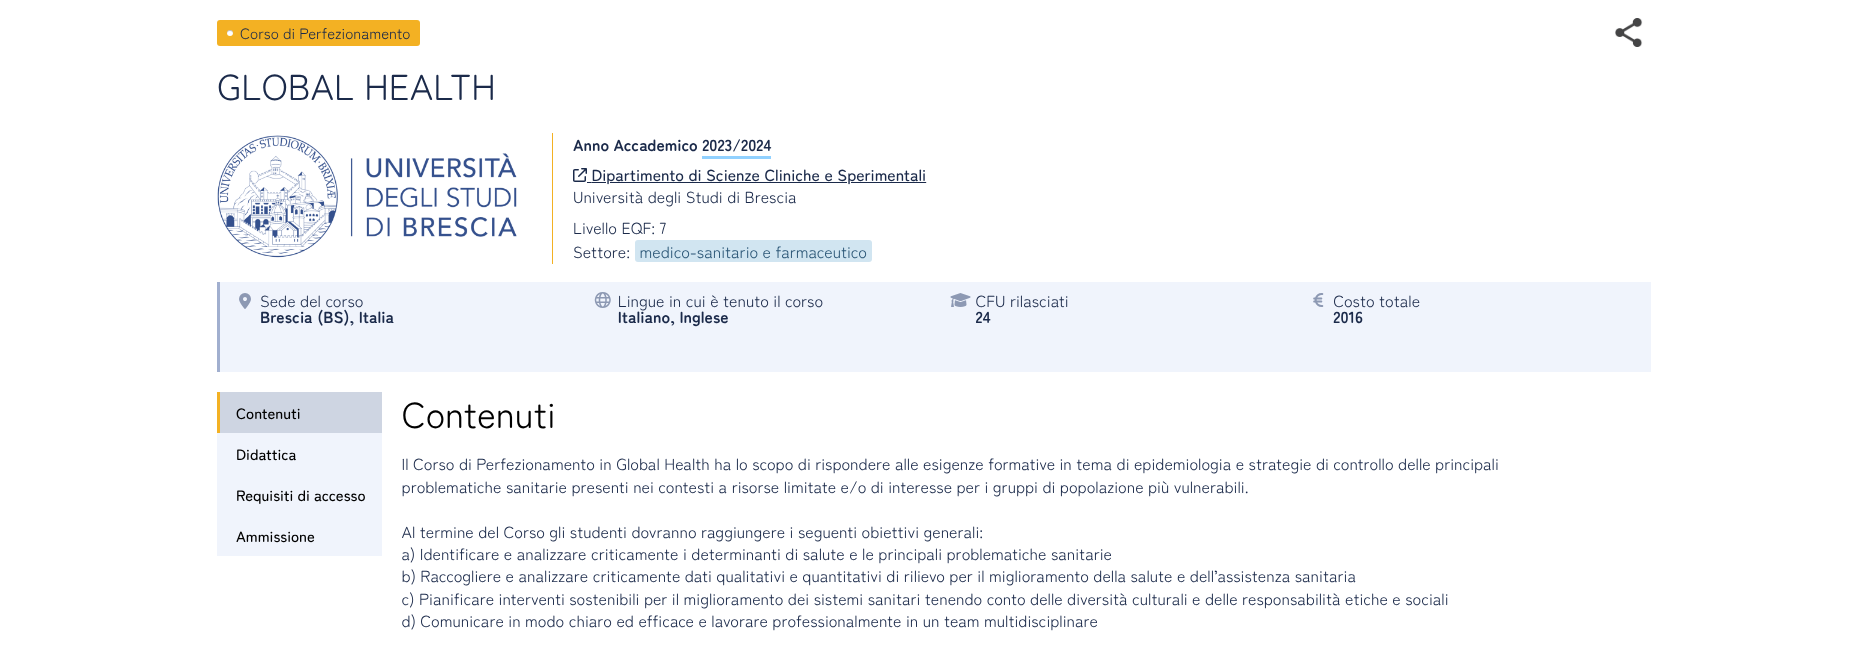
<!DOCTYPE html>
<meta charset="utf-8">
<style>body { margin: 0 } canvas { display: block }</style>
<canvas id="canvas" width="1868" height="657"></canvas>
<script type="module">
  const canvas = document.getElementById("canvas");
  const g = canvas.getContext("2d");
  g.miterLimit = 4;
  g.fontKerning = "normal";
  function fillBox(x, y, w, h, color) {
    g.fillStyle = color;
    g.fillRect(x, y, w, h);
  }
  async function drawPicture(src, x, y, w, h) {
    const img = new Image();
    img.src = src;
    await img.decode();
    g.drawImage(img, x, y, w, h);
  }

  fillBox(0, 0, 1868, 657, "#FFFFFF");
  await drawPicture("pic1.png", 217, 18, 1434, 613);
</script>
